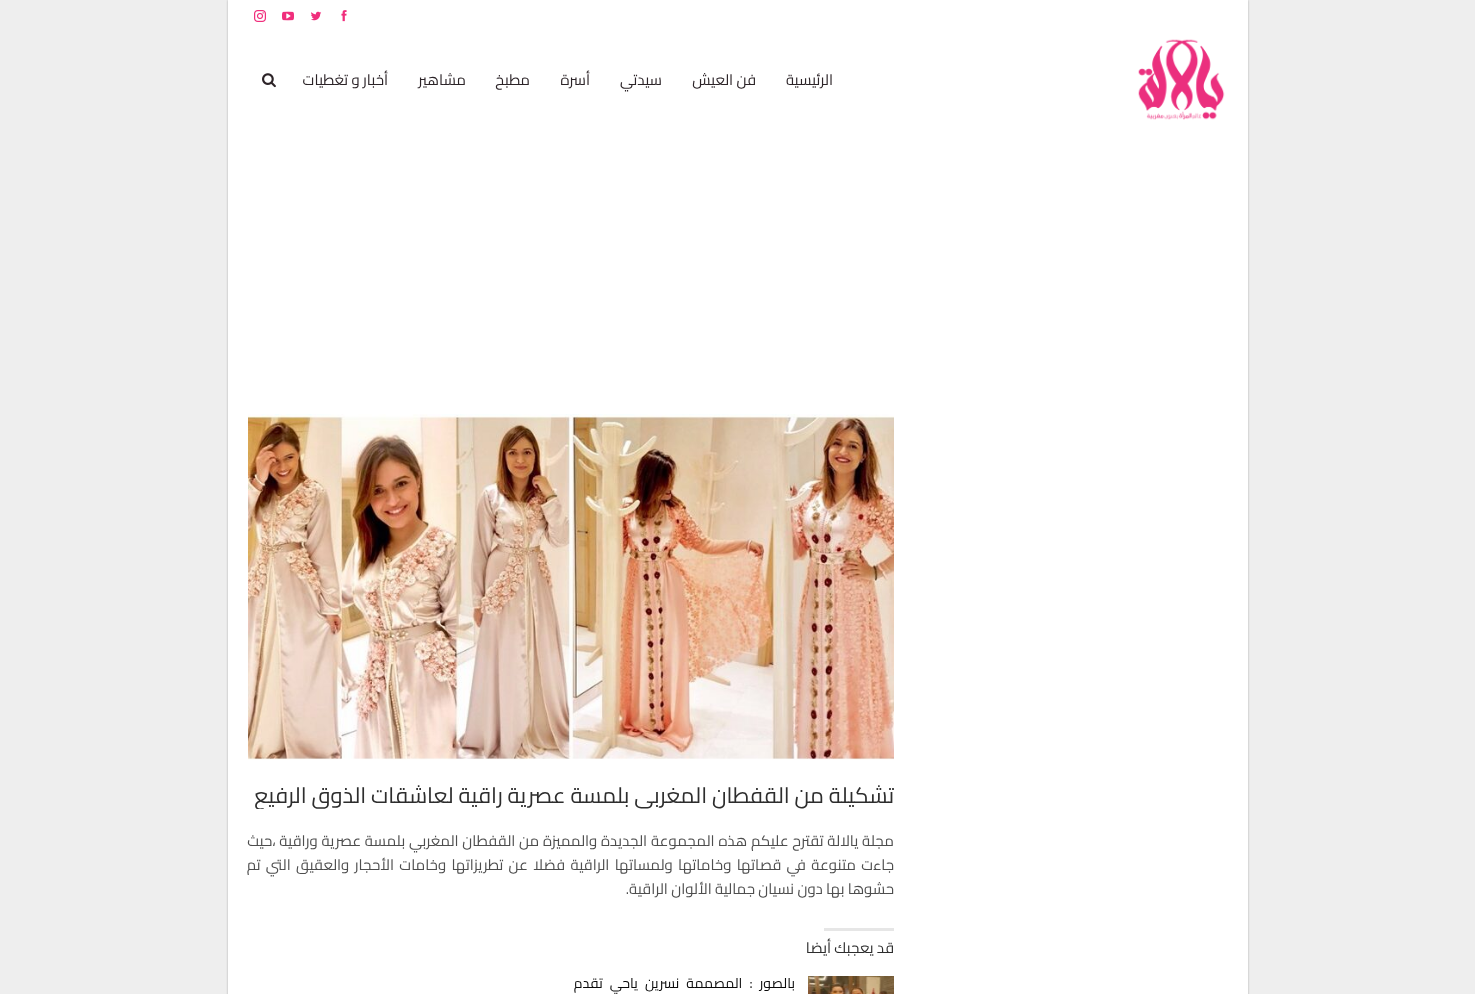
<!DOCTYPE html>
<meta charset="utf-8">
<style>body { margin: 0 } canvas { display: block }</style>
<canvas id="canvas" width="1475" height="994"></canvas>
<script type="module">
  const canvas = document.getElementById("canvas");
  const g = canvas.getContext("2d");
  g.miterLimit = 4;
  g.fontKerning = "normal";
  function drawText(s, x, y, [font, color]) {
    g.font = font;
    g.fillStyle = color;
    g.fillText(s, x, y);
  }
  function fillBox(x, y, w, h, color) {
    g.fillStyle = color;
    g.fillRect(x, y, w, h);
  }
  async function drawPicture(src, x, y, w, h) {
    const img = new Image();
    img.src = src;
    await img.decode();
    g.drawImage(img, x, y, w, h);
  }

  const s1 = ["15px Cairo", "#2C2428"];
  const s2 = ["22px Cairo", "#2D2D2D"];
  const s3 = ["15px Cairo", "#4E4E4E"];
  const s4 = ["15px Cairo", "#2D2D2D"];
  const s5 = ["14px Cairo", "#0A0A0A"];

  fillBox(0, 0, 1475, 994, "#EEEEEE");
  g.fillStyle = "rgba(0, 0, 0, 0.27)";
  g.filter = "blur(1px)";
  g.beginPath();
  g.rect(228, 0, 1020, 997);
  g.fill();
  g.filter = "none";
  fillBox(228, 0, 1020, 994, "#FFFFFF");
  await drawPicture("pic1.png", 341, 10, 6, 12);
  await drawPicture("pic2.png", 311, 11, 11, 10);
  await drawPicture("pic3.png", 282, 11, 12, 10);
  await drawPicture("pic4.png", 254, 10, 12, 12);
  await drawPicture("pic5.png", 1138, 39, 87, 81);
  g.direction = "rtl";
  drawText("الرئيسية", 833, 85, s1);
  drawText("فن العيش", 756, 85, s1);
  drawText("سيدتي", 662, 85, s1);
  drawText("أسرة", 590, 85, s1);
  drawText("مطبخ", 530, 85, s1);
  drawText("مشاهير", 466, 85, s1);
  drawText("أخبار و تغطيات", 388, 85, s1);
  await drawPicture("pic6.png", 262, 73, 14, 15);
  await drawPicture("pic7.png", 248, 414, 646, 346);
  g.save();
  g.beginPath();
  g.rect(248, 782, 646, 27);
  g.clip();
  drawText("تشكيلة من القفطان المغربي بلمسة عصرية راقية لعاشقات الذوق الرفيع", 894, 803, s2);
  g.restore();
  g.wordSpacing = "0.5px";
  drawText("مجلة يالالة تقترح عليكم هذه المجموعة الجديدة والمميزة من القفطان المغربي بلمسة عصرية وراقية ،حيث", 894, 846, s3);
  g.wordSpacing = "2px";
  drawText("جاءت متنوعة في قصاتها وخاماتها ولمساتها الراقية فضلا عن تطريزاتها وخامات الأحجار والعقيق التي تم", 894, 870, s3);
  g.wordSpacing = "0px";
  drawText("حشوها بها دون نسيان جمالية الألوان الراقية.", 894, 894, s3);
  fillBox(824, 928, 70, 3, "#E6E6E6");
  drawText("قد يعجبك أيضا", 894, 953, s4);
  await drawPicture("pic8.png", 808, 976, 86, 18);
  g.wordSpacing = "4px";
  drawText("بالصور : المصممة نسرين ياحي تقدم", 795, 988, s5);
</script>
